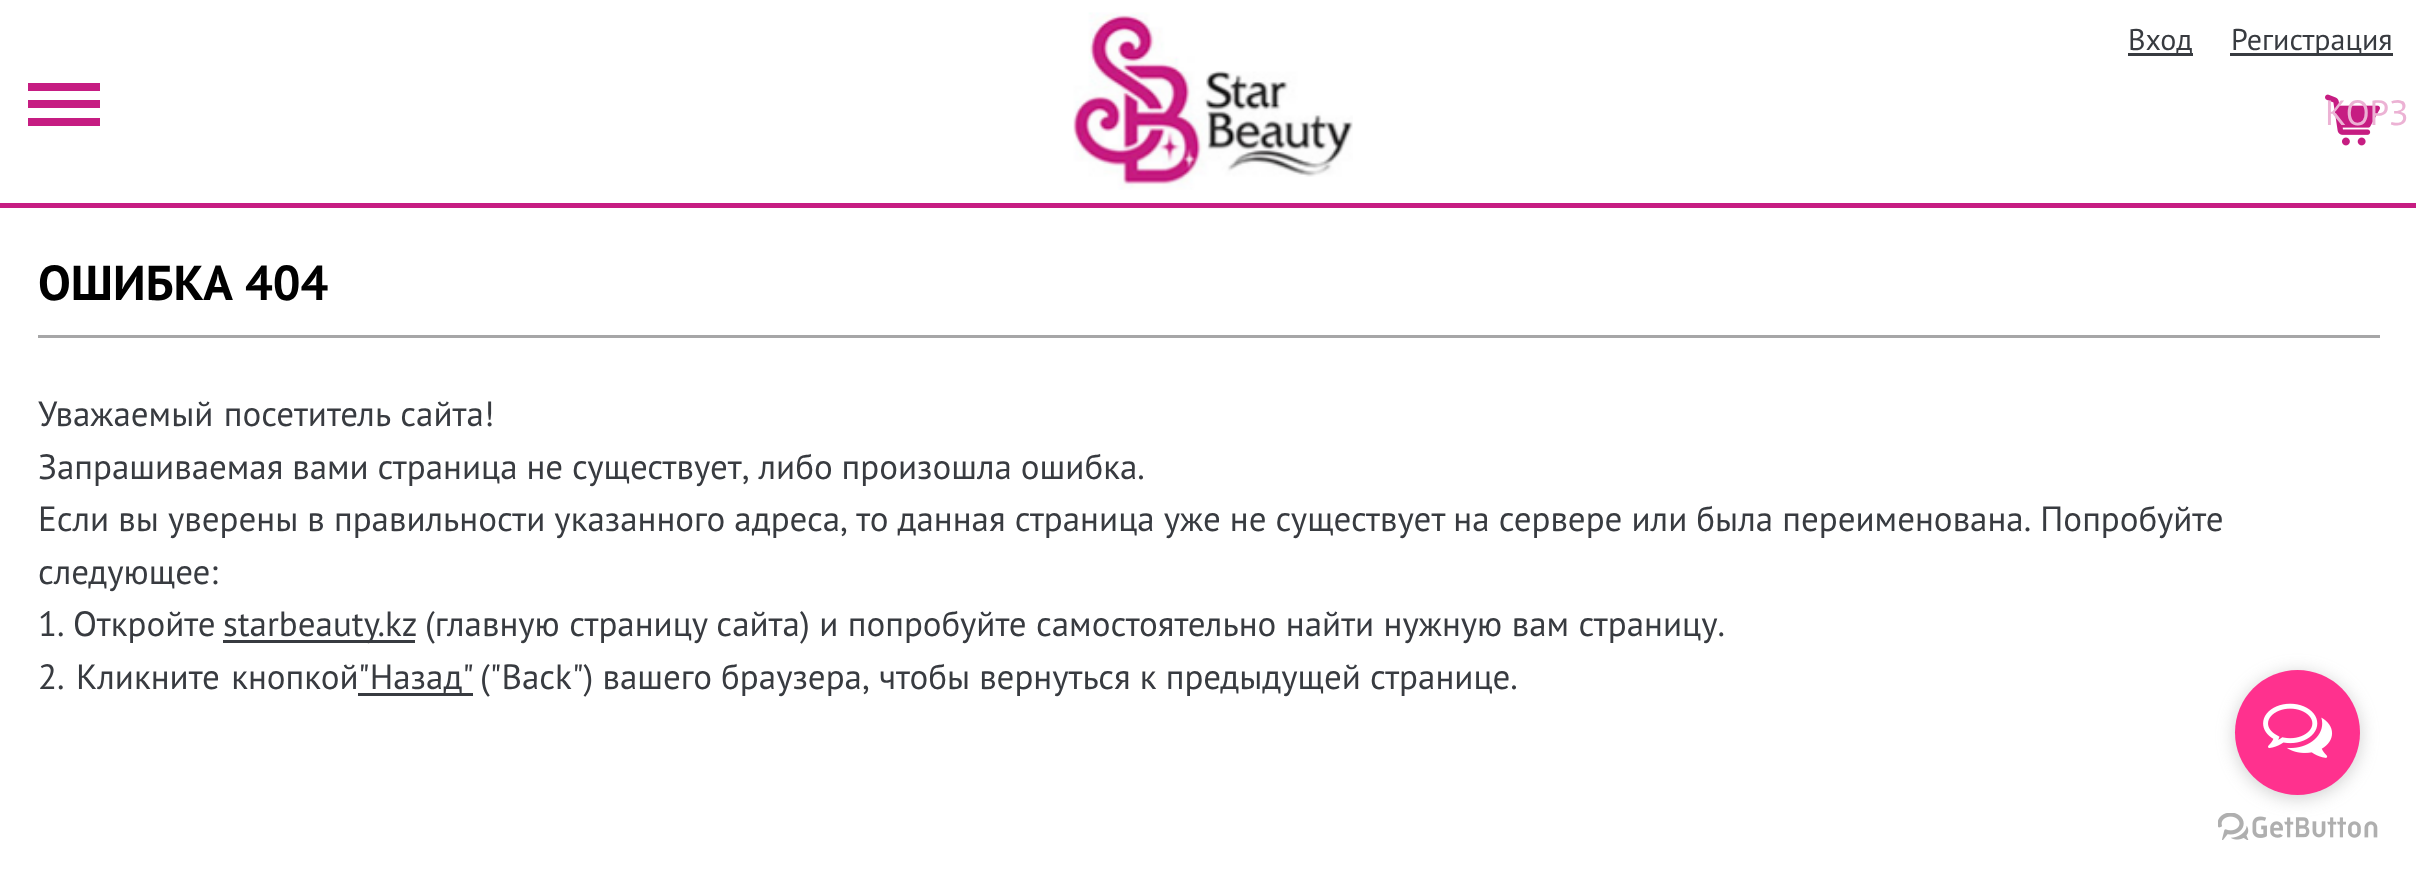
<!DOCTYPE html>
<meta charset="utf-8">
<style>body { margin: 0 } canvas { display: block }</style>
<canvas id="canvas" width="2416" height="879"></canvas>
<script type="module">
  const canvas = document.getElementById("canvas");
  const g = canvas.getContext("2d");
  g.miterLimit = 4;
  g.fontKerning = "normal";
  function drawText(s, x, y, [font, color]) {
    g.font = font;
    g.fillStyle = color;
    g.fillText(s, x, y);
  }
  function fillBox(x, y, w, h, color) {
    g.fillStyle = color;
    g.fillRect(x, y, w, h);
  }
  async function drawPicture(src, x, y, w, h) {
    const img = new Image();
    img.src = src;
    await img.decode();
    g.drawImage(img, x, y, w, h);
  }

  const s1 = ["30px PT Sans", "#383B40"];
  const s2 = ["35px PT Sans", "#ECB2D4"];
  const s3 = ["bold 49px PT Sans", "#000000"];
  const s4 = ["35px PT Sans", "#383B40"];

  fillBox(0, 0, 2416, 879, "#FFFFFF");
  fillBox(28, 83, 72, 8, "#C61D82");
  fillBox(28, 100, 72, 8, "#C61D82");
  fillBox(28, 118, 72, 8, "#C61D82");
  fillBox(0, 203, 2416, 5, "#C61D82");
  await drawPicture("pic1.png", 1073, 12, 280, 178);
  fillBox(2128, 53, 65, 3, "#383B40");
  drawText("Вход", 2128, 50, s1);
  fillBox(2230, 53, 163, 3, "#383B40");
  drawText("Регистрация", 2231, 50, s1);
  await drawPicture("pic2.png", 2325, 94, 55, 52);
  drawText("КОРЗ", 2325, 125, s2);
  fillBox(38, 335, 2342, 3, "#A6A6A7");
  g.wordSpacing = "2px";
  drawText("ОШИБКА 404", 38, 300, s3);
  g.wordSpacing = "1px";
  drawText("Уважаемый посетитель сайта!", 38, 426, s4);
  g.wordSpacing = "-0.5px";
  drawText("Запрашиваемая вами страница не существует, либо произошла ошибка.", 38, 479, s4);
  g.wordSpacing = "-0.25px";
  drawText("Если вы уверены в правильности указанного адреса, то данная страница уже не существует на сервере или была переименована. Попробуйте", 38, 531, s4);
  g.wordSpacing = "0px";
  drawText("следующее:", 38, 584, s4);
  g.wordSpacing = "-1px";
  drawText("1. Откройте", 38, 636, s4);
  fillBox(223, 640, 192, 3, "#383B40");
  g.wordSpacing = "0px";
  drawText("starbeauty.kz", 223, 636, s4);
  g.wordSpacing = "0.1px";
  drawText("(главную страницу сайта) и попробуйте самостоятельно найти нужную вам страницу.", 425, 636, s4);
  g.wordSpacing = "2px";
  drawText("2. Кликните кнопкой", 38, 689, s4);
  fillBox(358, 693, 115, 3, "#383B40");
  g.wordSpacing = "0px";
  drawText("\"Назад\"", 358, 689, s4);
  g.wordSpacing = "-0.25px";
  drawText("(\"Back\") вашего браузера, чтобы вернуться к предыдущей странице.", 480, 689, s4);
  await drawPicture("pic4.png", 2218, 813, 160, 27);
  g.fillStyle = "rgba(136, 136, 136, 0.4)";
  g.filter = "blur(9px)";
  g.beginPath();
  g.roundRect(2235, 673, 125, 125, 62.5);
  g.fill();
  g.filter = "none";
  g.fillStyle = "#FF318E";
  g.beginPath();
  g.arc(2297.5, 732.5, 62.5, 0, Math.PI * 2);
  g.fill();
  await drawPicture("pic3.png", 2263, 703, 70, 55);
</script>
